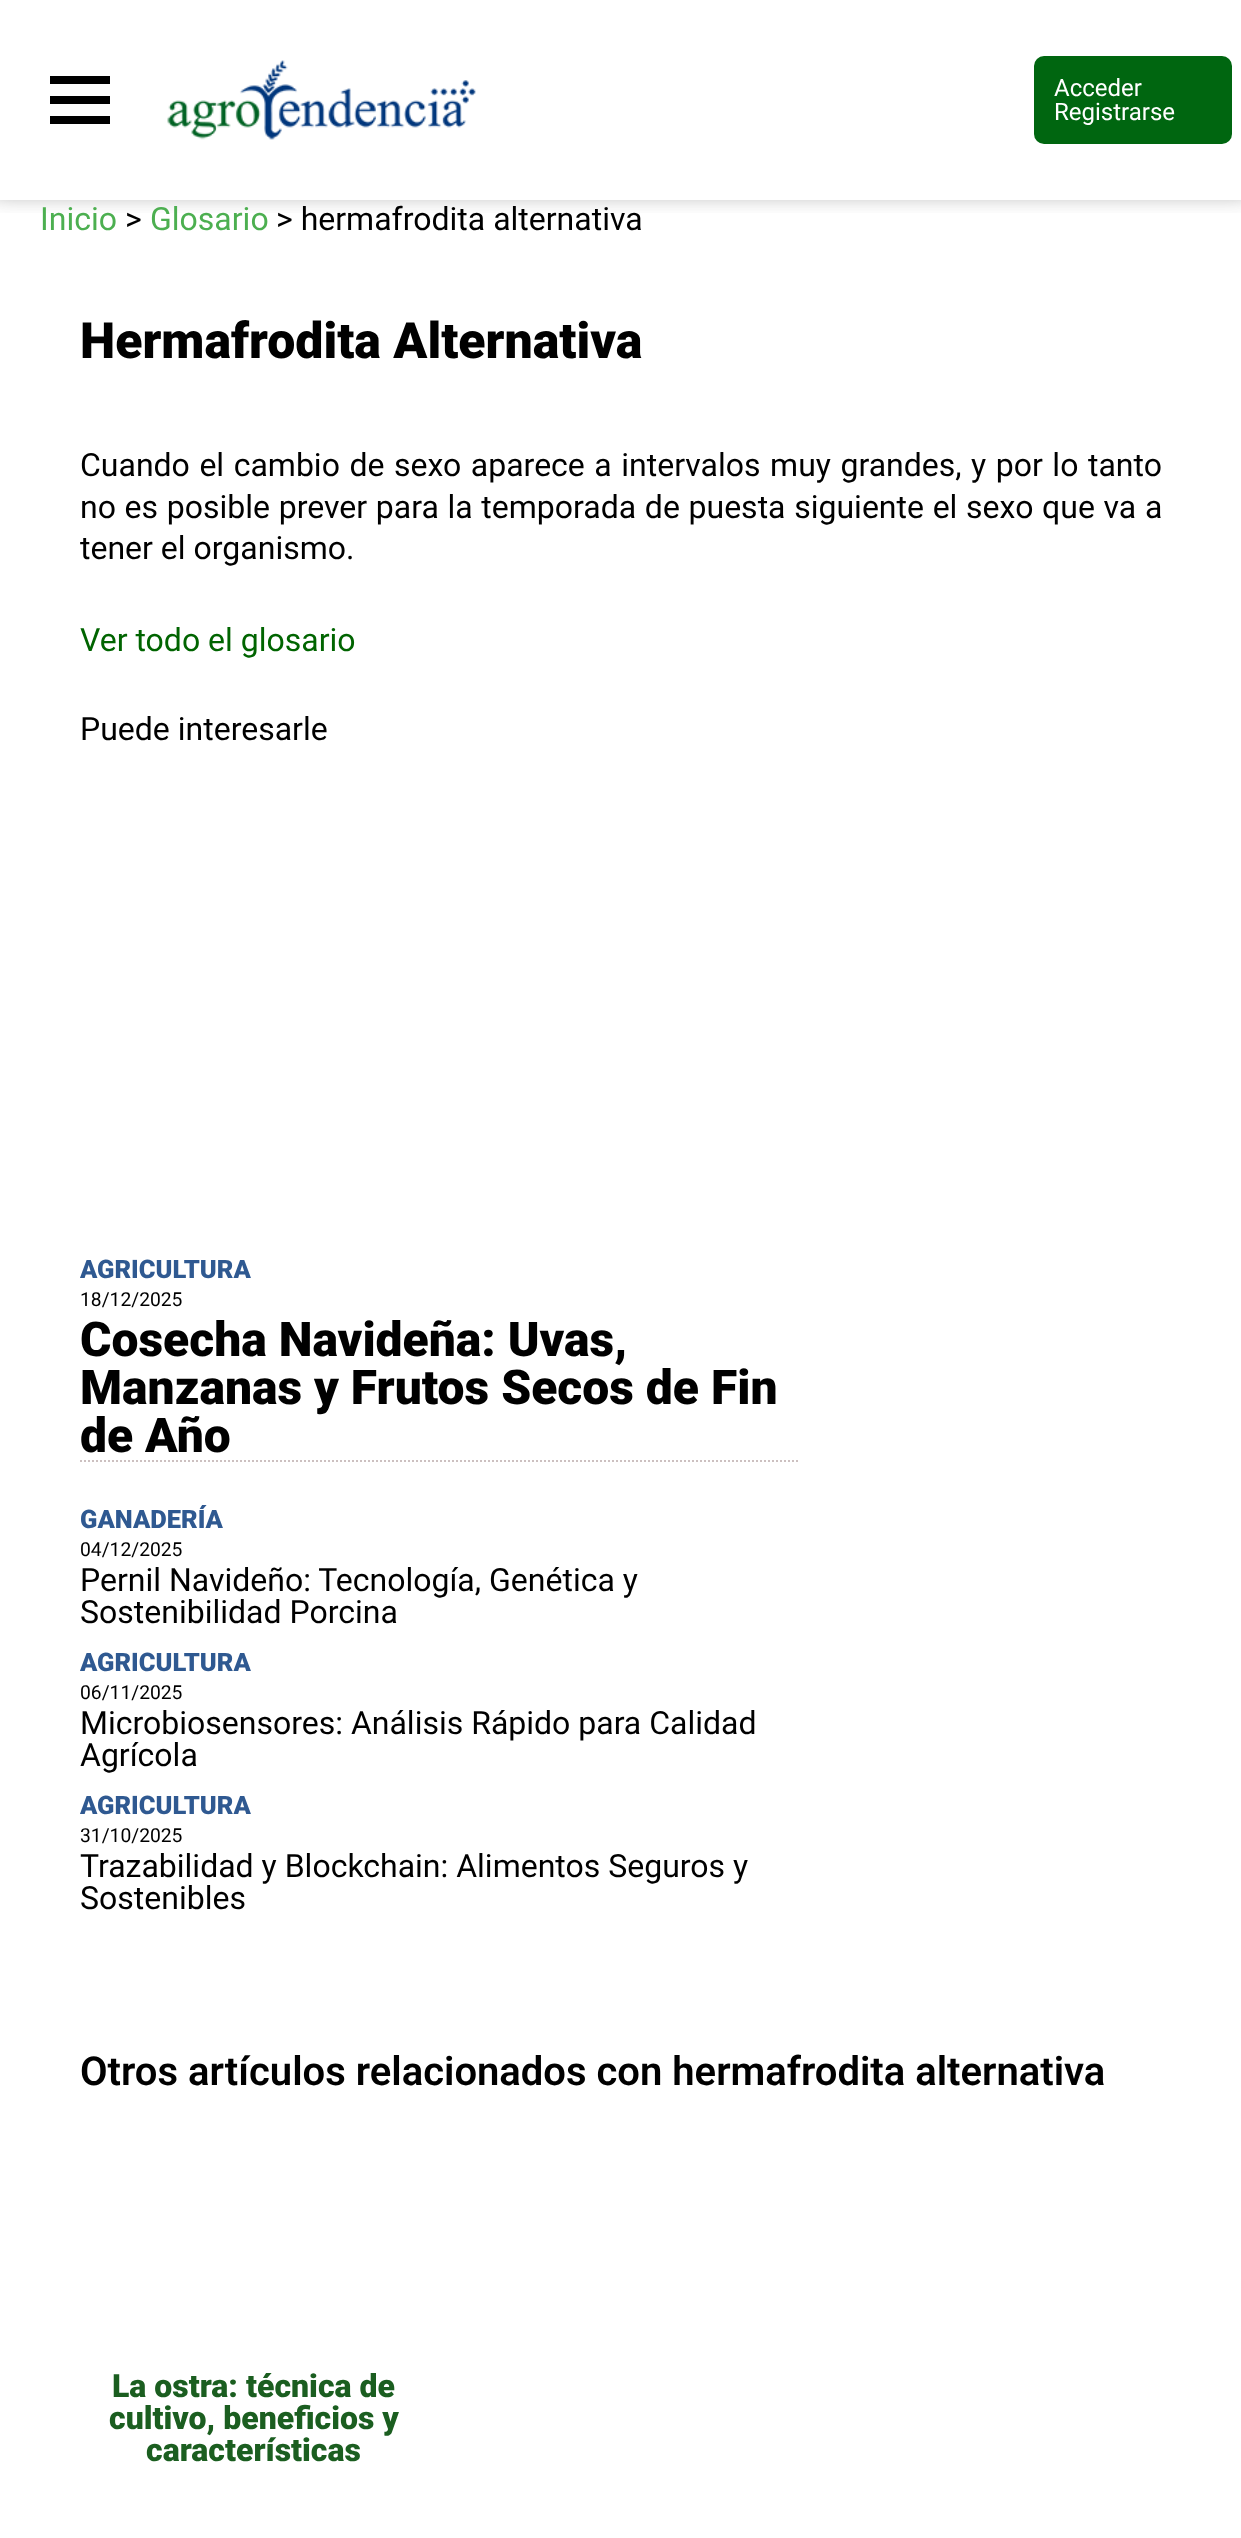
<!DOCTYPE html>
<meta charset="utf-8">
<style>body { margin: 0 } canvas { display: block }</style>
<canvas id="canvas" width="1241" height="2538"></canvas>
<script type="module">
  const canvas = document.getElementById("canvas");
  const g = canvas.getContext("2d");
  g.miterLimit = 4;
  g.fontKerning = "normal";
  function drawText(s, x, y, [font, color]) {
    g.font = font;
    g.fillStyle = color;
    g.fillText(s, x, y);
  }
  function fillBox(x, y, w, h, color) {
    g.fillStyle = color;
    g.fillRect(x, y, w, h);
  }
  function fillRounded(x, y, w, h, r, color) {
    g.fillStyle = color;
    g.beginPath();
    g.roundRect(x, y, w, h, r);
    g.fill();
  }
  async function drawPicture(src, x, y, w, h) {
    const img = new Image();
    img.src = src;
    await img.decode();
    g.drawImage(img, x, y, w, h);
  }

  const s1 = ["24px Roboto", "#FFFFFF"];
  const s2 = ["32px Roboto", "#4CAF50"];
  const s3 = ["32px Roboto", "#000000"];
  const s4 = ["900 50px Roboto", "#000000"];
  const s5 = ["32px Roboto", "#006400"];
  const s6 = ["900 25.5px Roboto", "#2F5991"];
  const s7 = ["19.25px Roboto", "#000000"];
  const s8 = ["900 48px Roboto", "#000000"];
  const s9 = ["600 40px Roboto", "#000000"];
  const s10 = ["900 32px Roboto", "#1B5E20"];

  fillBox(0, 0, 1241, 2538, "#FFFFFF");
  g.save();
  g.beginPath();
  g.rect(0, 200, 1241, 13);
  g.clip();
  g.fillStyle = "rgba(63, 63, 63, 0.51)";
  g.filter = "blur(11px)";
  g.beginPath();
  g.rect(-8, -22, 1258, 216);
  g.fill();
  g.filter = "none";
  g.restore();
  fillBox(50, 76, 60, 8, "#000000");
  fillBox(50, 96, 60, 8, "#000000");
  fillBox(50, 116, 60, 8, "#000000");
  await drawPicture("pic1.png", 167, 60, 309, 80);
  fillRounded(1034, 56, 198, 88, 10, "#006610");
  drawText("Acceder", 1054, 96, s1);
  drawText("Registrarse", 1054, 120, s1);
  drawText("Inicio", 40, 230, s2);
  drawText(">", 125, 230, s3);
  drawText("Glosario", 150, 230, s2);
  drawText("> hermafrodita alternativa", 276, 230, s3);
  drawText("Hermafrodita Alternativa", 80, 358, s4);
  g.wordSpacing = "1.6px";
  drawText("Cuando el cambio de sexo aparece a intervalos muy grandes, y por lo tanto", 80, 476, s3);
  g.wordSpacing = "0.75px";
  drawText("no es posible prever para la temporada de puesta siguiente el sexo que va a", 80, 518, s3);
  g.wordSpacing = "0px";
  drawText("tener el organismo.", 80, 559, s3);
  drawText("Ver todo el glosario", 80, 651, s5);
  drawText("Puede interesarle", 80, 740, s3);
  g.beginPath();
  g.moveTo(80, 1461);
  g.lineTo(800, 1461);
  g.strokeStyle = "#CCC0C0";
  g.lineWidth = 2;
  g.setLineDash([2, 2]);
  g.stroke();
  drawText("AGRICULTURA", 80, 1278, s6);
  drawText("18/12/2025", 80, 1306, s7);
  drawText("Cosecha Navideña: Uvas,", 80, 1356, s8);
  drawText("Manzanas y Frutos Secos de Fin", 80, 1404, s8);
  drawText("de Año", 80, 1452, s8);
  drawText("GANADERÍA", 80, 1528, s6);
  drawText("04/12/2025", 80, 1556, s7);
  drawText("Pernil Navideño: Tecnología, Genética y", 80, 1591, s3);
  drawText("Sostenibilidad Porcina", 80, 1623, s3);
  drawText("AGRICULTURA", 80, 1671, s6);
  drawText("06/11/2025", 80, 1699, s7);
  drawText("Microbiosensores: Análisis Rápido para Calidad", 80, 1734, s3);
  drawText("Agrícola", 80, 1766, s3);
  drawText("AGRICULTURA", 80, 1814, s6);
  drawText("31/10/2025", 80, 1842, s7);
  drawText("Trazabilidad y Blockchain: Alimentos Seguros y", 80, 1877, s3);
  drawText("Sostenibles", 80, 1909, s3);
  drawText("Otros artículos relacionados con hermafrodita alternativa", 80, 2085, s9);
  drawText("La ostra: técnica de", 112, 2397, s10);
  drawText("cultivo, beneficios y", 109, 2429, s10);
  drawText("características", 146, 2461, s10);
</script>
